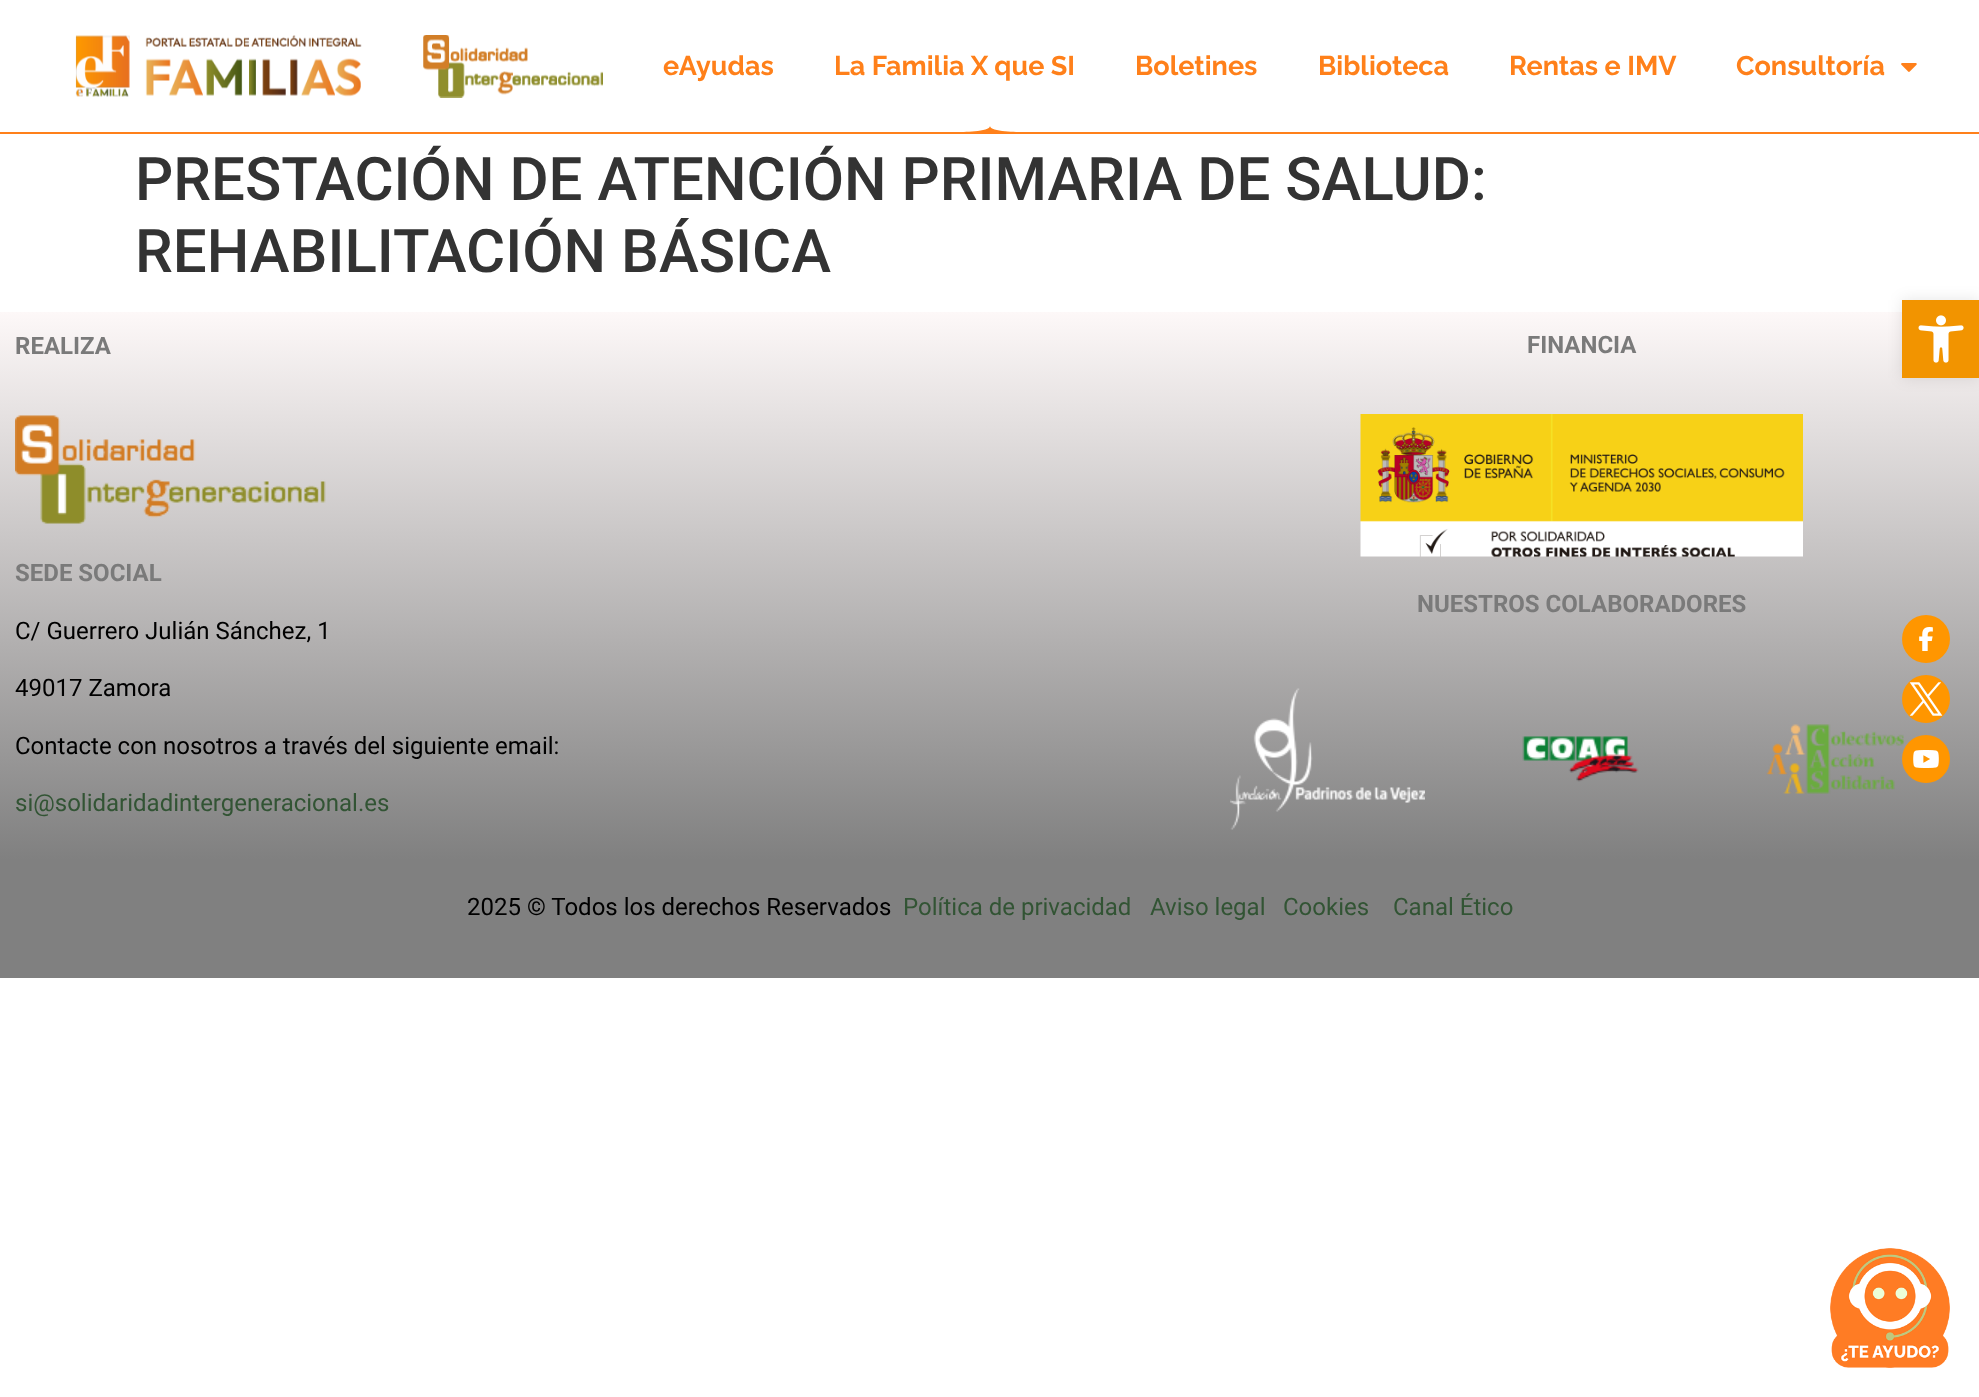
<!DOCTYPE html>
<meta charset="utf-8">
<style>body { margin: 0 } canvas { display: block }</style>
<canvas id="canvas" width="1979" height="1397"></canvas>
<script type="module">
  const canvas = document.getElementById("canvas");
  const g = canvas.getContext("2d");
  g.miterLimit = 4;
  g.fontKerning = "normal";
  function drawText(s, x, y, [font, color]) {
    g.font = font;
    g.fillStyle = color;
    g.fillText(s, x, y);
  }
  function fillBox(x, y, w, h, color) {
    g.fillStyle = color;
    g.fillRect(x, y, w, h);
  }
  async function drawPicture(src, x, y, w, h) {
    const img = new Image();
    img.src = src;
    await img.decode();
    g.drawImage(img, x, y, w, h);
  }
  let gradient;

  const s1 = ["bold 27px Raleway", "#FF801A"];
  const s2 = ["500 60px Roboto", "#333333"];
  const s3 = ["bold 24px Roboto", "#7A7A7A"];
  const s4 = ["24px Roboto", "#000000"];
  const s5 = ["24px Roboto", "#325434"];

  fillBox(0, 0, 1979, 1397, "#FFFFFF");
  await drawPicture("pic1.png", 75, 35, 287, 62);
  await drawPicture("pic2.png", 423, 35, 180, 63);
  drawText("eAyudas", 663, 75, s1);
  drawText("La Familia X que SI", 834, 75, s1);
  drawText("Boletines", 1135, 75, s1);
  drawText("Biblioteca", 1318, 75, s1);
  drawText("Rentas e IMV", 1509, 75, s1);
  drawText("Consultoría", 1736, 75, s1);
  await drawPicture("pic3.png", 1901, 63, 16, 9);
  g.beginPath();
  g.moveTo(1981, 134);
  g.lineTo(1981, 132);
  g.lineTo(1023, 132);
  g.bezierCurveTo(1019, 132, 990, 132, 990, 126);
  g.bezierCurveTo(990, 132, 961, 132, 957, 132);
  g.lineTo(-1, 132);
  g.lineTo(-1, 134);
  g.closePath();
  g.fill();
  drawText("PRESTACIÓN DE ATENCIÓN PRIMARIA DE SALUD:", 135, 200, s2);
  drawText("REHABILITACIÓN BÁSICA", 135, 272, s2);
  gradient = g.createLinearGradient(990, 312, 990, 860);
  gradient.addColorStop(0, "#FDF8F8");
  gradient.addColorStop(1, "#808080");
  g.fillStyle = gradient;
  g.fillRect(0, 312, 1979, 548);
  drawText("REALIZA", 15, 354, s3);
  await drawPicture("pic4.png", 15, 415, 311, 109);
  drawText("SEDE SOCIAL", 15, 581, s3);
  drawText("C/ Guerrero Julián Sánchez, 1", 15, 639, s4);
  drawText("49017 Zamora", 15, 696, s4);
  drawText("Contacte con nosotros a través del siguiente email:", 15, 754, s4);
  drawText("si@solidaridadintergeneracional.es", 15, 811, s5);
  drawText("FINANCIA", 1527, 353, s3);
  await drawPicture("pic5.png", 1360, 414, 443, 143);
  drawText("NUESTROS COLABORADORES", 1417, 612, s3);
  await drawPicture("pic6.png", 1230, 688, 195, 142);
  await drawPicture("pic7.png", 1522, 736, 117, 46);
  await drawPicture("pic8.png", 1766, 724, 138, 70);
  fillBox(0, 860, 1979, 118, "#808080");
  drawText("2025 © Todos los derechos Reservados", 467, 915, s4);
  drawText("Política de privacidad", 903, 915, s5);
  drawText("Aviso legal", 1150, 915, s5);
  drawText("Cookies", 1283, 915, s5);
  drawText("Canal Ético", 1393, 915, s5);
  g.fillStyle = "rgba(0, 0, 0, 0.1)";
  g.filter = "blur(7.5px)";
  g.beginPath();
  g.rect(1902, 300, 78, 78);
  g.fill();
  g.filter = "none";
  fillBox(1902, 300, 77, 78, "#F29400");
  await drawPicture("pic9.png", 1918, 315, 46, 48);
  g.fillStyle = "#FF9600";
  g.beginPath();
  g.arc(1926, 639, 24, 0, Math.PI * 2);
  g.fill();
  await drawPicture("pic10.png", 1919, 627, 14, 24);
  g.beginPath();
  g.arc(1926, 699, 24, 0, Math.PI * 2);
  g.fill();
  await drawPicture("pic11.png", 1909, 682, 34, 34);
  g.beginPath();
  g.arc(1926, 759, 24, 0, Math.PI * 2);
  g.fill();
  await drawPicture("pic12.png", 1913, 750, 26, 18);
  await drawPicture("pic13.png", 1830, 1248, 120, 120);
</script>
